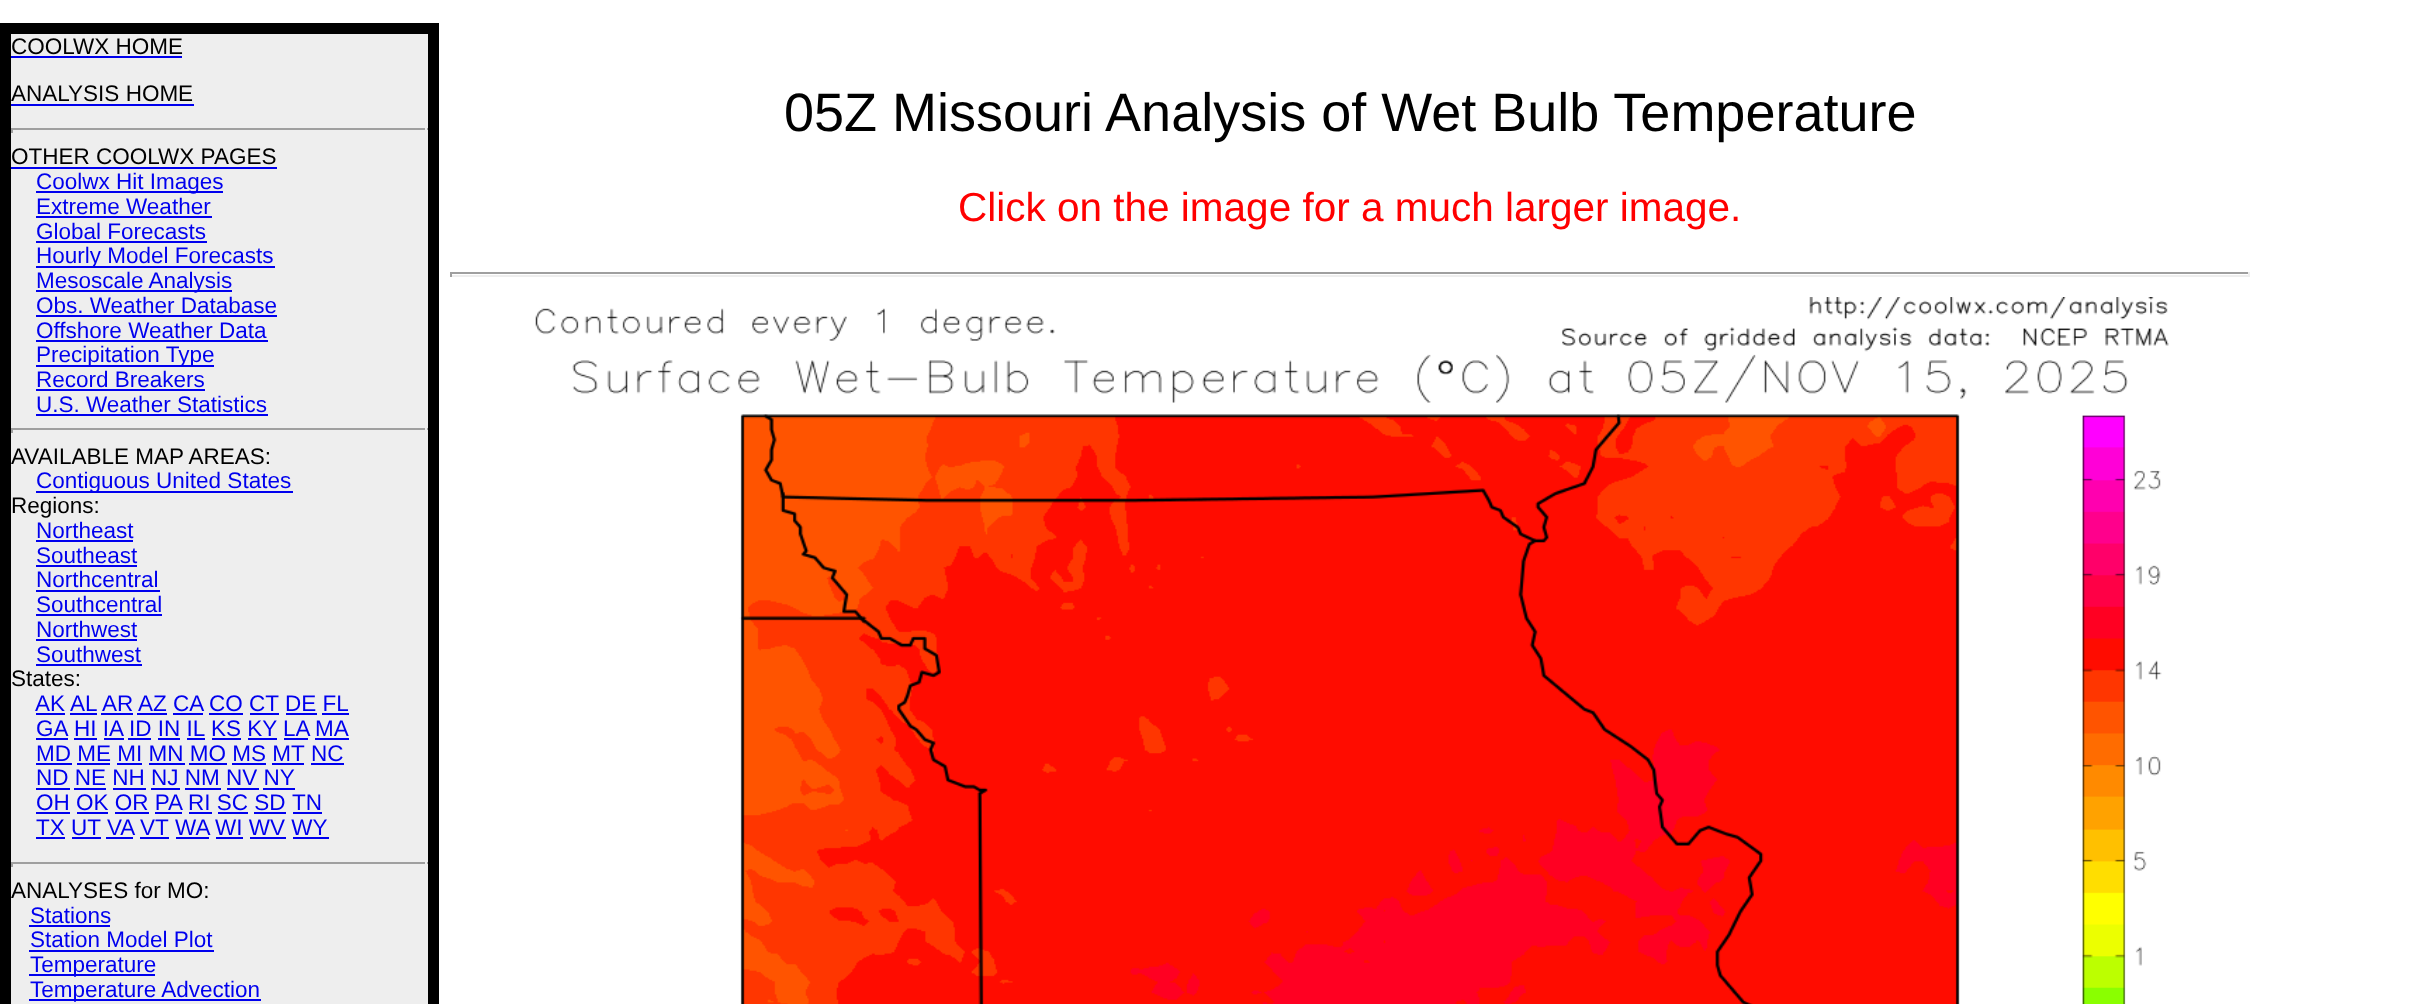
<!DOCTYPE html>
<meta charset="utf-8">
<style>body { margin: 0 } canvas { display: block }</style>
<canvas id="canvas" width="2414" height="1004"></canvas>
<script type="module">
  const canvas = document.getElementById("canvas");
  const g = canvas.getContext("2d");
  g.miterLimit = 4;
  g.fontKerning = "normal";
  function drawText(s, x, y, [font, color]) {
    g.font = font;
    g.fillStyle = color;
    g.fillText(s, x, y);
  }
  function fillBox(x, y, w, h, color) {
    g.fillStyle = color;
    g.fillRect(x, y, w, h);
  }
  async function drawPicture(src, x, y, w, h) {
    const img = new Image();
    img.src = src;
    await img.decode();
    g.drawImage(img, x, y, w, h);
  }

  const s1 = ["22.5px Liberation Sans", "#000000"];
  const s2 = ["22.5px Liberation Sans", "#0000EE"];
  const s3 = ["54px Liberation Sans", "#000000"];
  const s4 = ["40.5px Liberation Sans", "#FF0000"];

  fillBox(0, 0, 2414, 1004, "#FFFFFF");
  g.fillStyle = "#EEEEEE";
  g.beginPath();
  g.rect(5.5, 28.5, 428, 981);
  g.fill();
  g.strokeStyle = "#000000";
  g.lineWidth = 11;
  g.stroke();
  drawText("COOLWX HOME", 11, 54, s1);
  fillBox(11, 56, 171, 2, "#0000EE");
  drawText("ANALYSIS HOME", 11, 101, s1);
  fillBox(11, 104, 183, 2, "#0000EE");
  fillBox(11, 128, 417, 2, "#9F9F9F");
  fillBox(425, 128, 2, 5, "#EEEEEE");
  fillBox(11, 128, 2, 5, "#9F9F9F");
  drawText("OTHER COOLWX PAGES", 11, 164, s1);
  fillBox(11, 167, 266, 2, "#0000EE");
  fillBox(36, 191, 187, 2, "#0000EE");
  drawText("Coolwx Hit Images", 36, 189, s2);
  drawText("Extreme Weather", 36, 214, s2);
  fillBox(36, 216, 176, 2, "#0000EE");
  drawText("Global Forecasts", 36, 239, s2);
  fillBox(36, 241, 171, 2, "#0000EE");
  fillBox(36, 266, 239, 2, "#0000EE");
  drawText("Hourly Model Forecasts", 36, 263, s2);
  fillBox(36, 290, 196, 2, "#0000EE");
  drawText("Mesoscale Analysis", 36, 288, s2);
  drawText("Obs. Weather Database", 36, 313, s2);
  fillBox(36, 315, 241, 2, "#0000EE");
  drawText("Offshore Weather Data", 36, 338, s2);
  fillBox(36, 340, 232, 2, "#0000EE");
  fillBox(36, 365, 178, 2, "#0000EE");
  drawText("Precipitation Type", 36, 362, s2);
  drawText("Record Breakers", 36, 387, s2);
  fillBox(36, 389, 169, 2, "#0000EE");
  drawText("U.S. Weather Statistics", 36, 412, s2);
  fillBox(36, 414, 232, 2, "#0000EE");
  fillBox(11, 428, 417, 2, "#9F9F9F");
  fillBox(425, 428, 2, 5, "#EEEEEE");
  fillBox(11, 428, 2, 5, "#9F9F9F");
  drawText("AVAILABLE MAP AREAS:", 11, 464, s1);
  fillBox(36, 491, 257, 2, "#0000EE");
  drawText("Contiguous United States", 36, 488, s2);
  drawText("Regions:", 11, 513, s1);
  drawText("Northeast", 36, 538, s2);
  fillBox(36, 540, 97, 2, "#0000EE");
  drawText("Southeast", 36, 563, s2);
  fillBox(36, 565, 101, 2, "#0000EE");
  drawText("Northcentral", 36, 587, s2);
  fillBox(36, 590, 124, 2, "#0000EE");
  drawText("Southcentral", 36, 612, s2);
  fillBox(36, 614, 126, 2, "#0000EE");
  drawText("Northwest", 36, 637, s2);
  fillBox(36, 639, 101, 2, "#0000EE");
  drawText("Southwest", 36, 662, s2);
  fillBox(36, 664, 106, 2, "#0000EE");
  drawText("States:", 11, 686, s1);
  drawText("AK", 35, 711, s2);
  fillBox(36, 713, 29, 2, "#0000EE");
  drawText("AL", 70, 711, s2);
  fillBox(70, 713, 27, 2, "#0000EE");
  drawText("AR", 102, 711, s2);
  fillBox(101, 713, 32, 2, "#0000EE");
  drawText("AZ CA", 138, 711, s2);
  fillBox(137, 713, 30, 2, "#0000EE");
  drawText("CO CT", 209, 711, s2);
  fillBox(209, 713, 34, 2, "#0000EE");
  drawText("DE FL", 285, 711, s2);
  fillBox(286, 713, 31, 2, "#0000EE");
  fillBox(173, 713, 30, 2, "#0000EE");
  fillBox(250, 713, 29, 2, "#0000EE");
  fillBox(322, 713, 27, 2, "#0000EE");
  drawText("GA", 36, 736, s2);
  fillBox(36, 738, 32, 2, "#0000EE");
  drawText("HI IA", 74, 736, s2);
  fillBox(74, 738, 23, 2, "#0000EE");
  drawText("ID IN IL", 129, 736, s2);
  fillBox(128, 738, 23, 2, "#0000EE");
  drawText("KS KY", 211, 736, s2);
  fillBox(212, 738, 29, 2, "#0000EE");
  drawText("LA", 283, 736, s2);
  fillBox(284, 738, 24, 2, "#0000EE");
  drawText("MA", 315, 736, s2);
  fillBox(315, 738, 34, 2, "#0000EE");
  fillBox(104, 738, 20, 2, "#0000EE");
  fillBox(158, 738, 22, 2, "#0000EE");
  fillBox(187, 738, 18, 2, "#0000EE");
  fillBox(248, 738, 29, 2, "#0000EE");
  drawText("MD ME MI MN MO MS MT", 36, 761, s2);
  fillBox(36, 763, 36, 2, "#0000EE");
  drawText("NC", 311, 761, s2);
  fillBox(311, 763, 33, 2, "#0000EE");
  fillBox(77, 763, 33, 2, "#0000EE");
  fillBox(117, 763, 25, 2, "#0000EE");
  fillBox(149, 763, 36, 2, "#0000EE");
  fillBox(189, 763, 38, 2, "#0000EE");
  fillBox(232, 763, 34, 2, "#0000EE");
  fillBox(272, 763, 32, 2, "#0000EE");
  drawText("ND NE NH NJ NM NV NY", 36, 785, s2);
  fillBox(36, 788, 34, 2, "#0000EE");
  fillBox(74, 788, 32, 2, "#0000EE");
  fillBox(113, 788, 33, 2, "#0000EE");
  fillBox(151, 788, 29, 2, "#0000EE");
  fillBox(185, 788, 36, 2, "#0000EE");
  fillBox(227, 788, 32, 2, "#0000EE");
  fillBox(263, 788, 32, 2, "#0000EE");
  drawText("OH OK OR PA", 36, 810, s2);
  fillBox(36, 812, 34, 2, "#0000EE");
  drawText("RI SC SD", 188, 810, s2);
  fillBox(189, 812, 23, 2, "#0000EE");
  drawText("TN", 292, 810, s2);
  fillBox(293, 812, 29, 2, "#0000EE");
  fillBox(77, 812, 31, 2, "#0000EE");
  fillBox(115, 812, 34, 2, "#0000EE");
  fillBox(155, 812, 27, 2, "#0000EE");
  fillBox(218, 812, 30, 2, "#0000EE");
  fillBox(254, 812, 32, 2, "#0000EE");
  drawText("TX UT", 36, 835, s2);
  fillBox(36, 837, 29, 2, "#0000EE");
  drawText("VA", 107, 835, s2);
  fillBox(106, 837, 27, 2, "#0000EE");
  drawText("VT", 140, 835, s2);
  fillBox(140, 837, 29, 2, "#0000EE");
  drawText("WA", 175, 835, s2);
  fillBox(176, 837, 33, 2, "#0000EE");
  drawText("WI WV WY", 215, 835, s2);
  fillBox(216, 837, 27, 2, "#0000EE");
  fillBox(72, 837, 29, 2, "#0000EE");
  fillBox(250, 837, 36, 2, "#0000EE");
  fillBox(293, 837, 36, 2, "#0000EE");
  fillBox(11, 862, 417, 2, "#9F9F9F");
  fillBox(425, 862, 2, 5, "#EEEEEE");
  fillBox(11, 862, 2, 5, "#9F9F9F");
  drawText("ANALYSES for MO:", 11, 898, s1);
  drawText("Stations", 30, 923, s2);
  fillBox(29, 925, 81, 2, "#0000EE");
  drawText("Station Model Plot", 30, 947, s2);
  fillBox(29, 950, 185, 2, "#0000EE");
  fillBox(29, 974, 126, 2, "#0000EE");
  drawText("Temperature", 30, 972, s2);
  fillBox(29, 999, 232, 2, "#0000EE");
  drawText("Temperature Advection", 30, 997, s2);
  drawText("05Z Missouri Analysis of Wet Bulb Temperature", 784, 131, s3);
  drawText("Click on the image for a much larger image.", 958, 221, s4);
  fillBox(450, 272, 1800, 2, "#9F9F9F");
  fillBox(2248, 272, 2, 5, "#EEEEEE");
  fillBox(450, 275, 1800, 2, "#EEEEEE");
  fillBox(450, 272, 2, 5, "#9F9F9F");
  await drawPicture("pic1.png", 535, 297, 1634, 707);
</script>
